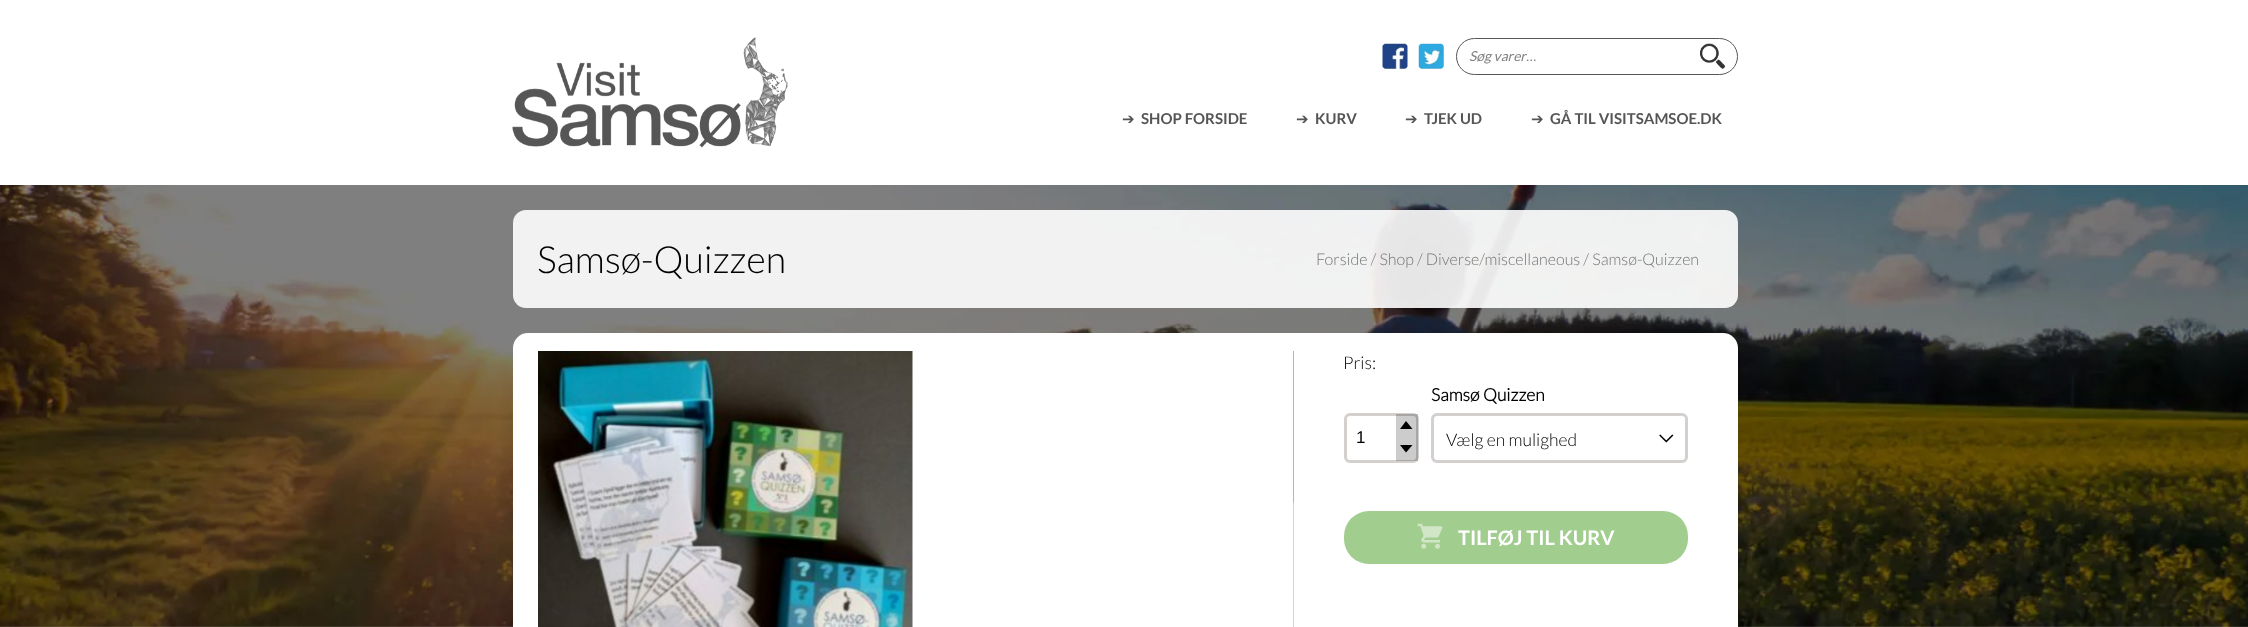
<!DOCTYPE html>
<meta charset="utf-8">
<style>body { margin: 0 } canvas { display: block }</style>
<canvas id="canvas" width="2248" height="627"></canvas>
<script type="module">
  const canvas = document.getElementById("canvas");
  const g = canvas.getContext("2d");
  g.miterLimit = 4;
  g.fontKerning = "normal";
  function drawText(s, x, y, [font, color]) {
    g.font = font;
    g.fillStyle = color;
    g.fillText(s, x, y);
  }
  function fillBox(x, y, w, h, color) {
    g.fillStyle = color;
    g.fillRect(x, y, w, h);
  }
  function fillRounded(x, y, w, h, r, color) {
    g.fillStyle = color;
    g.beginPath();
    g.roundRect(x, y, w, h, r);
    g.fill();
  }
  async function drawPicture(src, x, y, w, h) {
    const img = new Image();
    img.src = src;
    await img.decode();
    g.drawImage(img, x, y, w, h);
  }
  let gradient;

  const s1 = ["italic 13.75px Lato", "#808080"];
  const s2 = ["15px DejaVu Sans", "#555555"];
  const s3 = ["bold 15px Lato", "#555555"];
  const s4 = ["300 37.5px Lato", "#000000"];
  const s5 = ["300 16.1px Lato", "#767676"];
  const s6 = ["300 17.5px Lato", "#000000"];
  const s7 = ["17px Liberation Sans", "#000000"];
  const s8 = ["bold 17.5px 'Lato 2'", "#000000"];
  const s9 = ["bold 20px Lato", "#FFFFFF"];

  fillBox(0, 0, 2248, 627, "#FFFFFF");
  await drawPicture("pic1.png", 0, 185, 2248, 442);
  await drawPicture("pic2.png", 512, 37, 276, 111);
  await drawPicture("pic3.png", 1382, 43, 26, 26);
  await drawPicture("pic4.png", 1418, 43, 26, 26);
  g.beginPath();
  g.roundRect(1456.5, 38.5, 281, 36, 18);
  g.strokeStyle = "#565758";
  g.stroke();
  drawText("Søg varer…", 1469, 61, s1);
  await drawPicture("pic5.png", 1700, 43, 25, 26);
  drawText("➔", 1122, 124, s2);
  drawText("SHOP FORSIDE", 1141, 124, s3);
  drawText("➔", 1296, 124, s2);
  drawText("KURV", 1315, 124, s3);
  drawText("➔", 1405, 124, s2);
  drawText("TJEK UD", 1424, 124, s3);
  drawText("➔", 1531, 124, s2);
  drawText("GÅ TIL VISITSAMSOE.DK", 1550, 124, s3);
  fillRounded(513, 210, 1225, 98, 13, "rgba(255, 255, 255, 0.9)");
  drawText("Samsø-Quizzen", 537, 273, s4);
  drawText("Forside / Shop / Diverse/miscellaneous / Samsø-Quizzen", 1316, 265, s5);
  gradient = g.createLinearGradient(1125, 332, 1125, 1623);
  gradient.addColorStop(0.4, "#FFFFFF");
  gradient.addColorStop(1, "#EEEEEE");
  g.fillStyle = gradient;
  g.beginPath();
  g.roundRect(513, 333, 1225, 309, 15);
  g.fill();
  await drawPicture("pic6.png", 538, 351, 375, 276);
  await drawPicture("pic7.png", 1293, 351, 1, 276);
  drawText("Pris:", 1343, 369, s6);
  g.beginPath();
  g.roundRect(1345.5, 414.5, 72, 47, 4.5);
  g.strokeStyle = "#D3D0CE";
  g.lineWidth = 3;
  g.stroke();
  drawText("1", 1356, 443, s7);
  fillBox(1396, 414, 22, 24, "rgba(0, 0, 0, 0.2)");
  g.fillStyle = "#000000";
  g.beginPath();
  g.moveTo(1412.5, 429);
  g.lineTo(1400, 429);
  g.lineTo(1406, 421);
  g.closePath();
  g.fill();
  fillBox(1396, 438, 22, 23, "rgba(0, 0, 0, 0.2)");
  g.fillStyle = "#000000";
  g.beginPath();
  g.moveTo(1400, 445);
  g.lineTo(1412.5, 445);
  g.lineTo(1406, 452.5);
  g.closePath();
  g.fill();
  drawText("Samsø Quizzen", 1431, 401, s8);
  await drawPicture("pic8.png", 1659, 434, 15, 9);
  g.beginPath();
  g.roundRect(1432.5, 414.5, 254, 47, 4.5);
  g.stroke();
  drawText("Vælg en mulighed", 1446, 446, s6);
  fillRounded(1344, 511, 344, 53, 25, "#A1CD8E");
  await drawPicture("pic9.png", 1417, 523, 26, 26);
  drawText("TILFØJ TIL KURV", 1458, 545, s9);
</script>
